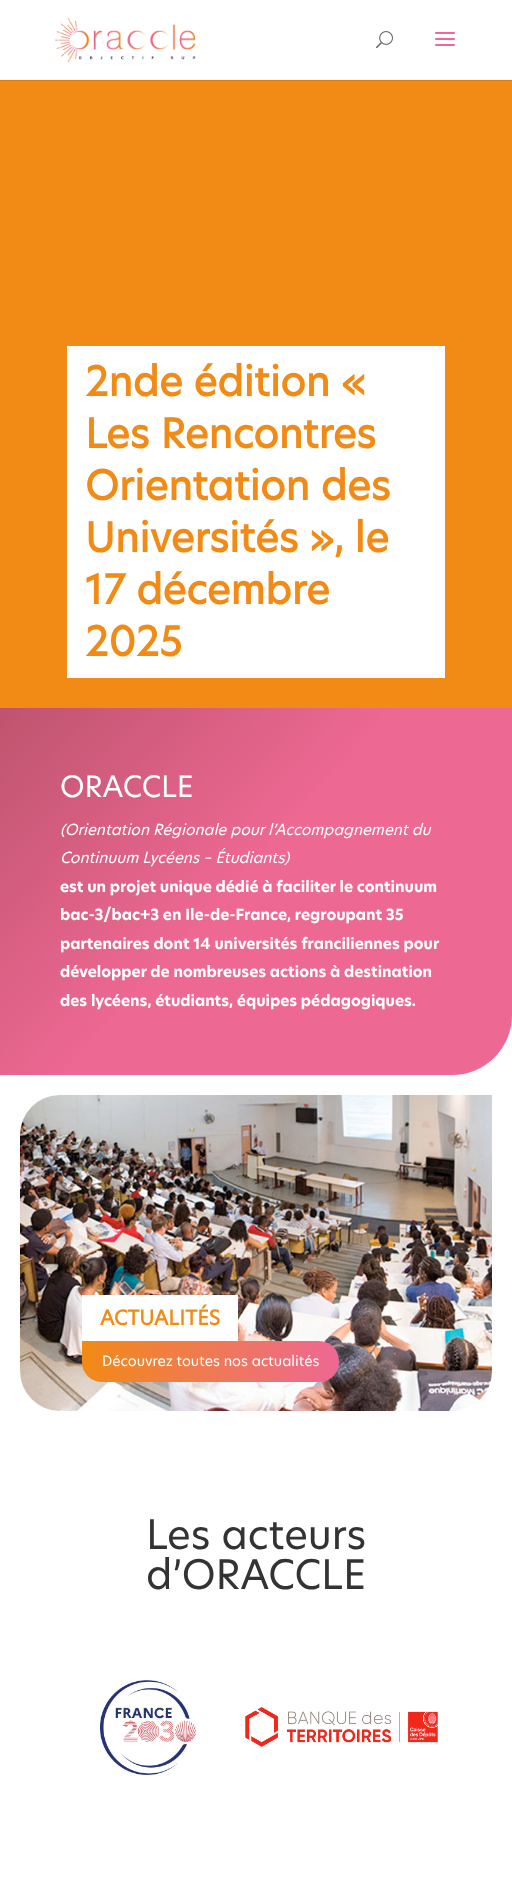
<!DOCTYPE html>
<meta charset="utf-8">
<style>body { margin: 0 } canvas { display: block }</style>
<canvas id="canvas" width="512" height="1898"></canvas>
<script type="module">
  const canvas = document.getElementById("canvas");
  const g = canvas.getContext("2d");
  g.miterLimit = 4;
  g.fontKerning = "normal";
  function drawText(s, x, y, [font, color]) {
    g.font = font;
    g.fillStyle = color;
    g.fillText(s, x, y);
  }
  function fillBox(x, y, w, h, color) {
    g.fillStyle = color;
    g.fillRect(x, y, w, h);
  }
  async function drawPicture(src, x, y, w, h) {
    const img = new Image();
    img.src = src;
    await img.decode();
    g.drawImage(img, x, y, w, h);
  }
  let gradient;

  const s1 = ["bold 40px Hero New", "#F28A16"];
  const s2 = ["29px Hero New", "#FFFFFF"];
  const s3 = ["italic 15px Hero New", "#FFFFFF"];
  const s4 = ["bold 15px 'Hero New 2'", "#FFFFFF"];
  const s5 = ["bold 20px Hero New", "#F28A16"];
  const s6 = ["14px Hero New", "#FFFFFF"];
  const s7 = ["40px Hero New", "#333333"];

  fillBox(0, 0, 512, 1898, "#FFFFFF");
  fillBox(0, 80, 512, 1, "#DA7C14");
  await drawPicture("pic1.png", 55, 18, 141, 44);
  await drawPicture("pic2.png", 376, 31, 17, 18);
  await drawPicture("pic3.png", 435, 32, 20, 14);
  fillBox(0, 81, 512, 627, "#F28A16");
  fillBox(67, 346, 378, 332, "#FFFFFF");
  drawText("2nde édition «", 85, 396, s1);
  drawText("Les Rencontres", 85, 448, s1);
  drawText("Orientation des", 85, 500, s1);
  drawText("Universités », le", 85, 552, s1);
  drawText("17 décembre", 85, 604, s1);
  drawText("2025", 85, 656, s1);
  gradient = g.createLinearGradient(23, 682, 489, 1101);
  gradient.addColorStop(0, "#BF546E");
  gradient.addColorStop(0.47, "#ED6893");
  g.fillStyle = gradient;
  g.beginPath();
  g.roundRect(0, 708, 512, 367, [0, 0, 60, 0]);
  g.fill();
  drawText("ORACCLE", 60, 797, s2);
  drawText("(Orientation Régionale pour l’Accompagnement du", 60, 835, s3);
  drawText("Continuum Lycéens – Étudiants)", 60, 863, s3);
  drawText("est un projet unique dédié à faciliter le continuum", 60, 892, s4);
  drawText("bac-3/bac+3 en Ile-de-France, regroupant 35", 60, 920, s4);
  drawText("partenaires dont 14 universités franciliennes pour", 60, 949, s4);
  drawText("développer de nombreuses actions à destination", 60, 977, s4);
  drawText("des lycéens, étudiants, équipes pédagogiques.", 60, 1006, s4);
  await drawPicture("pic4.png", 20, 1095, 472, 316);
  fillBox(82, 1295, 156, 46, "#FFFFFF");
  drawText("ACTUALITÉS", 100, 1325, s5);
  gradient = g.createLinearGradient(82, 1362, 339, 1362);
  gradient.addColorStop(0, "#F28A16");
  gradient.addColorStop(1, "#ED6893");
  g.fillStyle = gradient;
  g.beginPath();
  g.roundRect(82, 1341, 257, 41, [0, 20, 20, 20]);
  g.fill();
  drawText("Découvrez toutes nos actualités", 102, 1366, s6);
  drawText("Les acteurs", 146, 1549, s7);
  drawText("d’ORACCLE", 146, 1589, s7);
  await drawPicture("pic5.png", 100, 1680, 96, 95);
  await drawPicture("pic6.png", 245, 1707, 193, 40);
</script>
